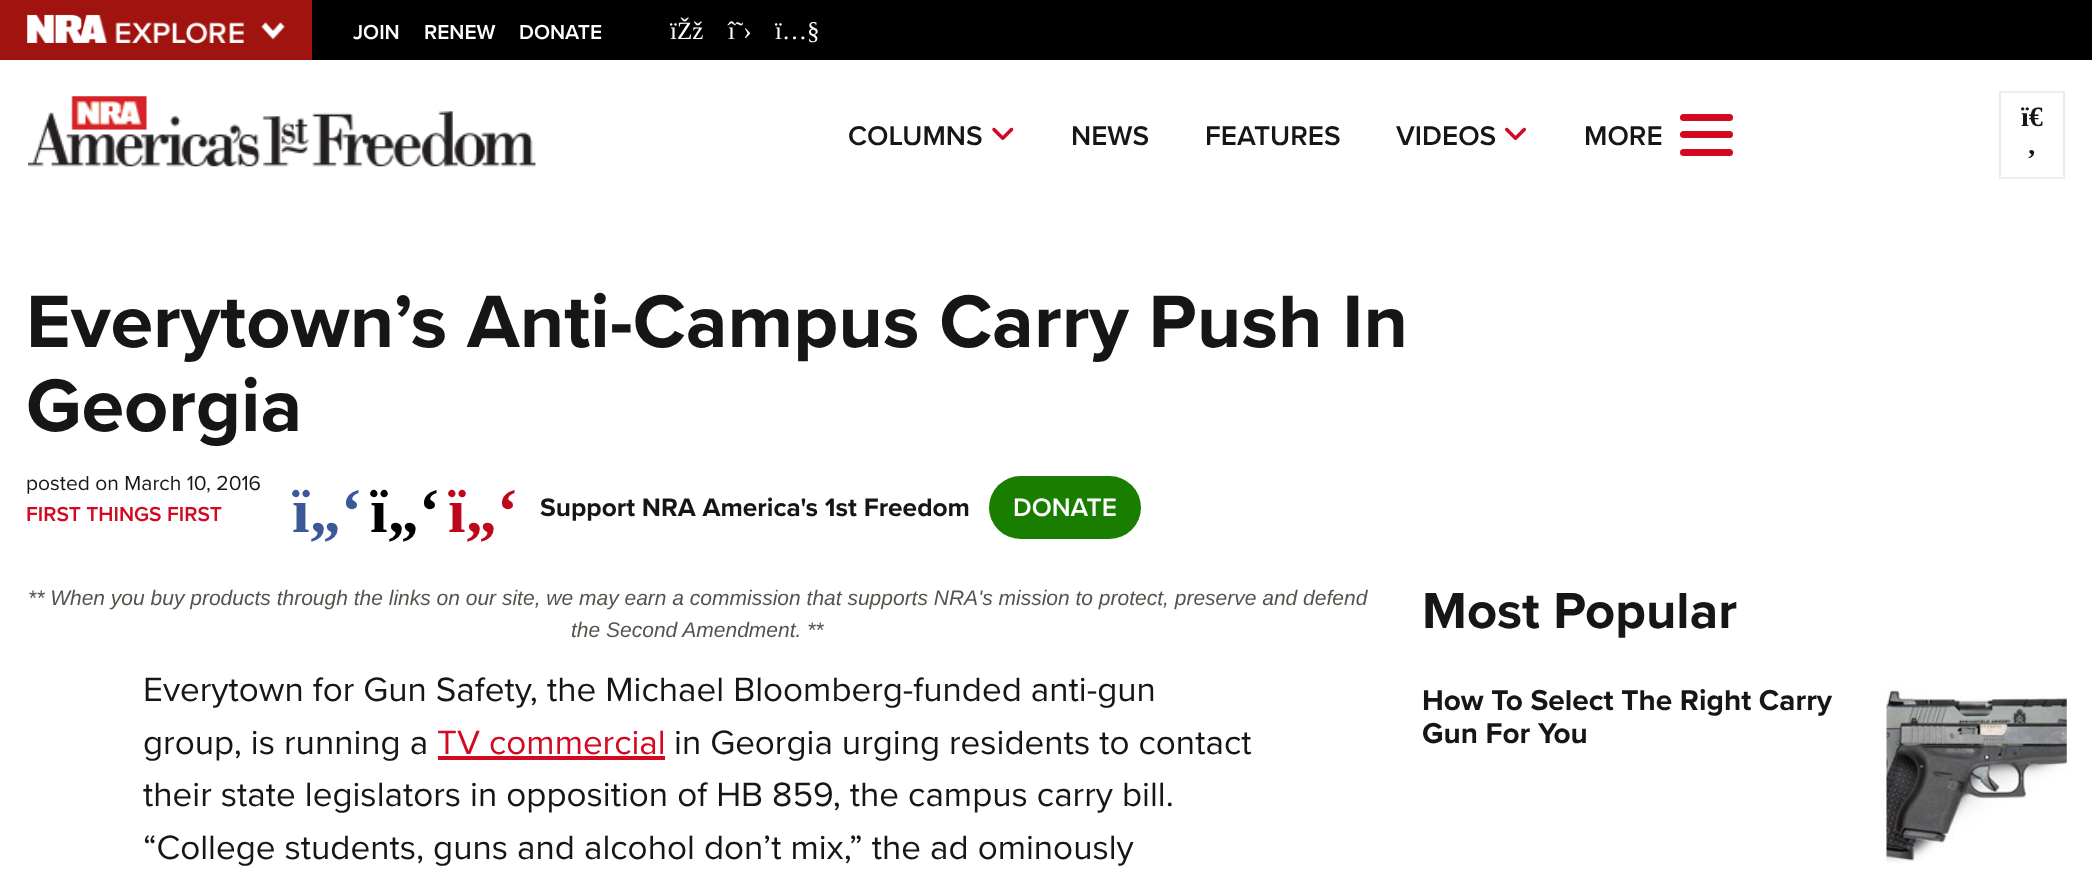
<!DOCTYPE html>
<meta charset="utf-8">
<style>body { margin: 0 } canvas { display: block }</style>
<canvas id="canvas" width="2092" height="893"></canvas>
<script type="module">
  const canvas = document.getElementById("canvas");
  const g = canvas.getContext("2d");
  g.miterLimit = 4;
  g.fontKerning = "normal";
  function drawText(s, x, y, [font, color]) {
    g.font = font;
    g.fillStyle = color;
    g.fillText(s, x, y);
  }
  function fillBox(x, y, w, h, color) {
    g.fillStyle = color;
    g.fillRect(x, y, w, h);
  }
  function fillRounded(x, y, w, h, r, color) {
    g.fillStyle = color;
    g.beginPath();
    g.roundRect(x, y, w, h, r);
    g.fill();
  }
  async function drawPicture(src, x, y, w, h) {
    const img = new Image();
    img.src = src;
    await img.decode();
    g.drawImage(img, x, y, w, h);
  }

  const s1 = ["600 21px Proxima Nova", "#FFFFFF"];
  const s2 = ["25px Liberation Serif", "#FFFFFF"];
  const s3 = ["600 28px Proxima Nova", "#161616"];
  const s4 = ["bold 28px Liberation Serif", "#161616"];
  const s5 = ["bold 77px Proxima Nova", "#161616"];
  const s6 = ["21px Proxima Nova", "#161616"];
  const s7 = ["600 21px Proxima Nova", "#D20921"];
  const s8 = ["bold 63px Liberation Serif", "#3B5998"];
  const s9 = ["bold 63px Liberation Serif", "#000000"];
  const s10 = ["bold 63px Liberation Serif", "#BD081C"];
  const s11 = ["bold 26.25px Proxima Nova", "#161616"];
  const s12 = ["600 26.25px Proxima Nova", "#FFFFFF"];
  const s13 = ["italic 21px Liberation Sans", "#54544E"];
  const s14 = ["35px Proxima Nova", "#161616"];
  const s15 = ["35px Proxima Nova", "#D20921"];
  const s16 = ["bold 52.5px Proxima Nova", "#161616"];
  const s17 = ["bold 29.75px Proxima Nova", "#161616"];

  fillBox(0, 0, 2092, 893, "#FFFFFF");
  fillBox(312, 0, 1780, 60, "#000000");
  fillBox(0, 0, 312, 60, "#A1130E");
  await drawPicture("pic1.png", 27, 14, 258, 30);
  drawText("JOIN", 353, 39, s1);
  drawText("RENEW", 424, 39, s1);
  drawText("DONATE", 519, 39, s1);
  drawText("ïŽž", 670, 39, s2);
  drawText("î˜›", 728, 39, s2);
  drawText("ï…§", 775, 39, s2);
  await drawPicture("pic2.png", 28, 96, 508, 71);
  drawText("COLUMNS", 848, 145, s3);
  await drawPicture("pic3.png", 992, 127, 22, 13);
  drawText("NEWS", 1071, 145, s3);
  drawText("FEATURES", 1205, 145, s3);
  drawText("VIDEOS", 1396, 145, s3);
  await drawPicture("pic4.png", 1505, 127, 21, 13);
  drawText("MORE", 1584, 145, s3);
  fillRounded(1680, 131, 53, 7, 3.5, "#D20921");
  fillRounded(1680, 114, 53, 7, 3.5, "#D20921");
  fillRounded(1680, 149, 53, 7, 3.5, "#D20921");
  g.strokeStyle = "#EDEDED";
  g.lineWidth = 2;
  g.strokeRect(2000, 92, 64, 86);
  drawText("ï€", 2021, 126, s4);
  drawText("‚", 2027, 154, s4);
  drawText("Everytown’s Anti-Campus Carry Push In", 26, 347, s5);
  drawText("Georgia", 26, 431, s5);
  drawText("posted on March 10, 2016", 26, 490, s6);
  drawText("FIRST THINGS FIRST", 26, 521, s7);
  drawText("ï„‘", 292, 532, s8);
  drawText("ï„‘", 370, 532, s9);
  drawText("ï„‘", 448, 532, s10);
  drawText("Support NRA America's 1st Freedom", 540, 516, s11);
  fillRounded(989, 476, 152, 63, 31.5, "#197E00");
  drawText("DONATE", 1013, 516, s12);
  drawText("** When you buy products through the links on our site, we may earn a commission that supports NRA's mission to protect, preserve and defend", 28, 605, s13);
  drawText("the Second Amendment. **", 571, 637, s13);
  drawText("Everytown for Gun Safety, the Michael Bloomberg-funded anti-gun", 143, 701, s14);
  drawText("group, is running a", 143, 754, s14);
  drawText("TV commercial", 437, 754, s15);
  fillBox(438, 756, 227, 4, "#D20921");
  drawText("in Georgia urging residents to contact", 674, 754, s14);
  drawText("their state legislators in opposition of HB 859, the campus carry bill.", 143, 806, s14);
  drawText("“College students, guns and alcohol don’t mix,” the ad ominously", 143, 859, s14);
  drawText("Most Popular", 1422, 628, s16);
  drawText("How To Select The Right Carry", 1422, 710, s17);
  drawText("Gun For You", 1422, 743, s17);
  await drawPicture("pic5.png", 1886, 686, 181, 177);
</script>
